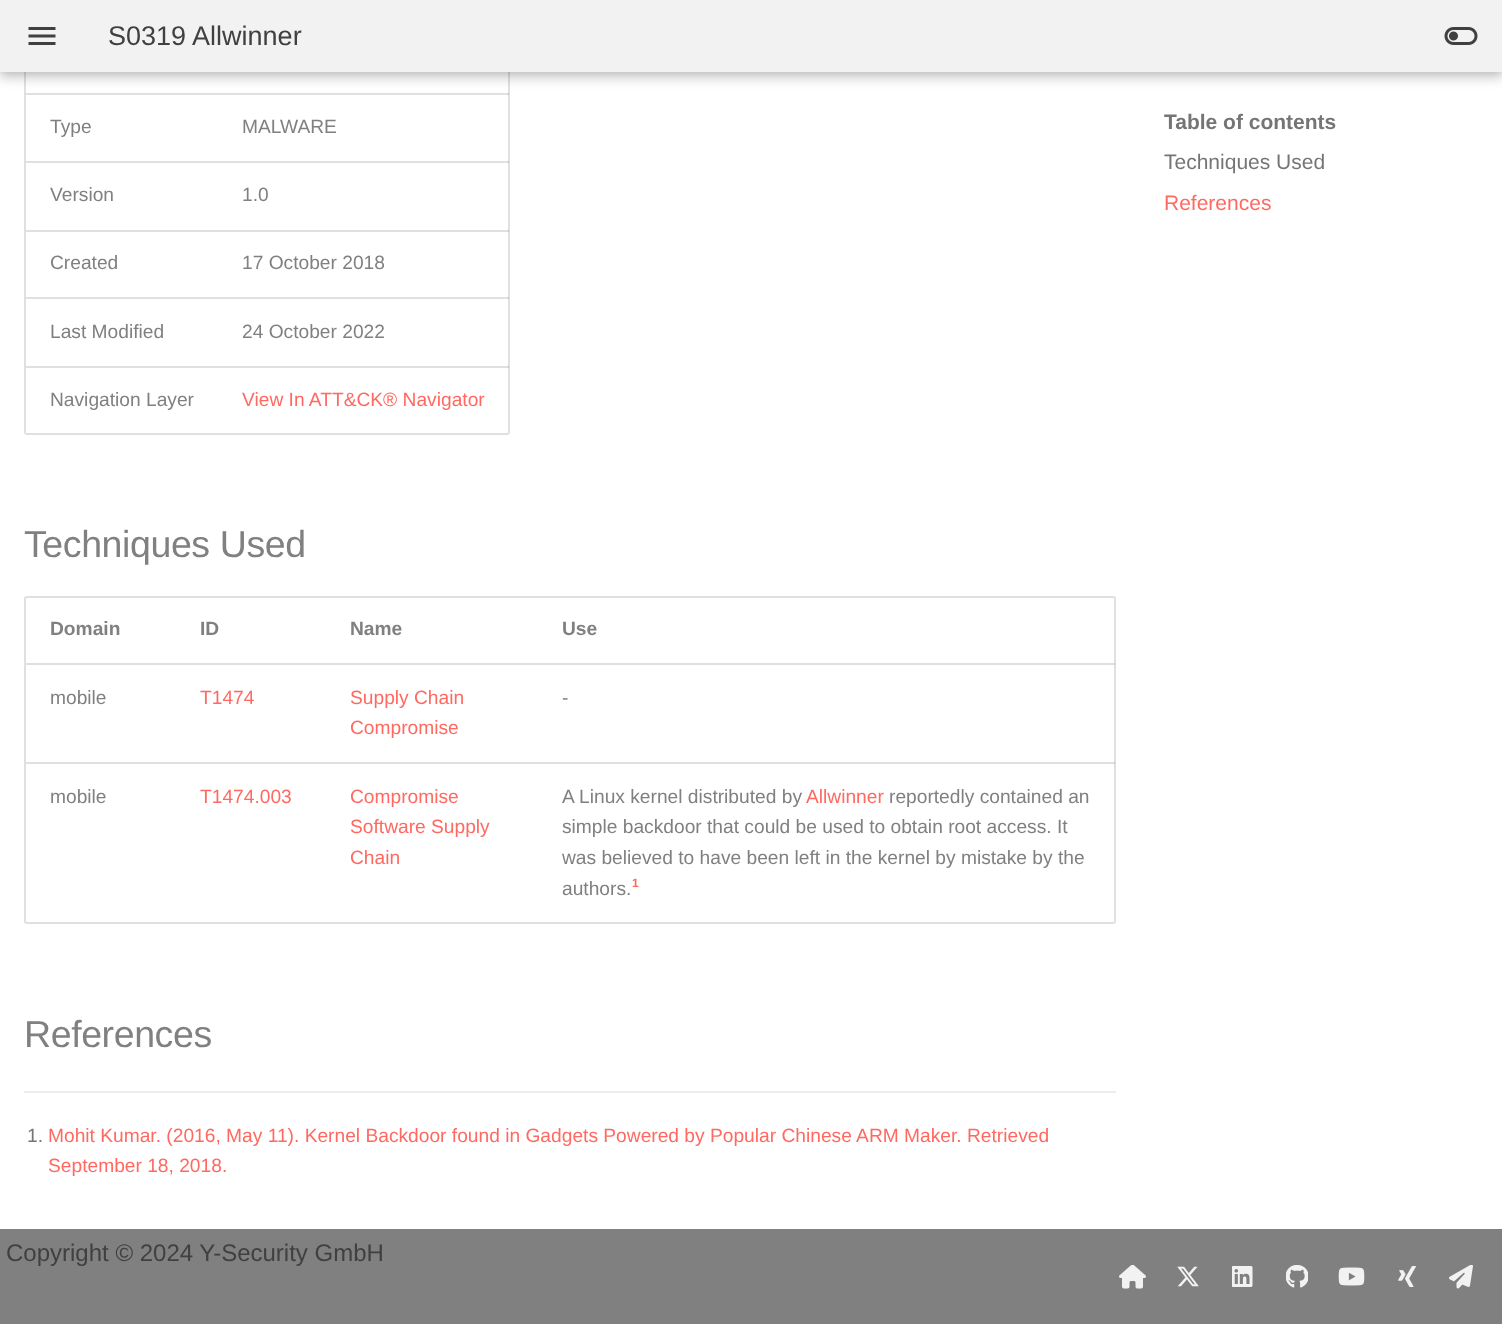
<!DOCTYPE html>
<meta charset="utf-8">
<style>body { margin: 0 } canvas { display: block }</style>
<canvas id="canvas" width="1502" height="1324"></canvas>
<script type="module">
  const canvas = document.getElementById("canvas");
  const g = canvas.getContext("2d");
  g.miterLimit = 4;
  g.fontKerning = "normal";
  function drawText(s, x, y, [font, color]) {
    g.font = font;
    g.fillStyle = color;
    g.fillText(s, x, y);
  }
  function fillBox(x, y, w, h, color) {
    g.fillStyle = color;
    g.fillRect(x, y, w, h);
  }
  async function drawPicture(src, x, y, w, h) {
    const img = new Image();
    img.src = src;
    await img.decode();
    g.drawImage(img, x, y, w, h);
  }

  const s1 = ["27px Liberation Sans", "#404040"];
  const s2 = ["19.2px Liberation Sans", "#808080"];
  const s3 = ["19.2px Liberation Sans", "#FF6961"];
  const s4 = ["37.5px Liberation Sans", "#808080"];
  const s5 = ["bold 19.2px Liberation Sans", "#808080"];
  const s6 = ["bold 12px Liberation Sans", "#FF6961"];
  const s7 = ["19.2px Liberation Sans", "#757575"];
  const s8 = ["bold 21px Liberation Sans", "#757575"];
  const s9 = ["21px Liberation Sans", "#757575"];
  const s10 = ["21px Liberation Sans", "#FF6961"];
  const s11 = ["24px Liberation Sans", "#404040"];

  fillBox(0, 0, 1502, 1324, "#FFFFFF");
  g.beginPath();
  g.roundRect(25, -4, 484, 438, 2);
  g.strokeStyle = "#E0E0E0";
  g.lineWidth = 2;
  g.stroke();
  fillBox(26, 93, 192, 2, "#E0E0E0");
  fillBox(218, 93, 291, 2, "rgba(0, 0, 0, 0.12)");
  g.fillStyle = "rgba(0, 0, 0, 0.2)";
  g.filter = "blur(6px)";
  g.beginPath();
  g.rect(0, 6, 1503, 72);
  g.fill();
  g.filter = "none";
  g.fillStyle = "rgba(0, 0, 0, 0.1)";
  g.filter = "blur(3px)";
  g.beginPath();
  g.rect(0, 0, 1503, 72);
  g.fill();
  g.filter = "none";
  fillBox(0, 0, 1502, 72, "#F2F2F2");
  await drawPicture("pic1.png", 28, 27, 28, 18);
  drawText("S0319 Allwinner", 108, 45, s1);
  await drawPicture("pic2.png", 1444, 27, 34, 18);
  drawText("Type", 50, 133, s2);
  drawText("MALWARE", 242, 133, s2);
  fillBox(26, 161, 192, 2, "#E0E0E0");
  drawText("Version", 50, 201, s2);
  fillBox(218, 161, 291, 2, "rgba(0, 0, 0, 0.12)");
  drawText("1.0", 242, 201, s2);
  fillBox(26, 230, 192, 2, "#E0E0E0");
  drawText("Created", 50, 269, s2);
  fillBox(218, 230, 291, 2, "rgba(0, 0, 0, 0.12)");
  drawText("17 October 2018", 242, 269, s2);
  fillBox(26, 297, 192, 2, "#E0E0E0");
  drawText("Last Modified", 50, 338, s2);
  fillBox(218, 297, 291, 2, "rgba(0, 0, 0, 0.12)");
  drawText("24 October 2022", 242, 338, s2);
  fillBox(26, 366, 192, 2, "#E0E0E0");
  drawText("Navigation Layer", 50, 406, s2);
  fillBox(218, 366, 291, 2, "rgba(0, 0, 0, 0.12)");
  drawText("View In ATT&CK® Navigator", 242, 406, s3);
  g.letterSpacing = "-0.4px";
  drawText("Techniques Used", 24, 557, s4);
  g.beginPath();
  g.roundRect(25, 597, 1090, 326, 2);
  g.stroke();
  g.letterSpacing = "0px";
  drawText("Domain", 50, 635, s5);
  drawText("ID", 200, 635, s5);
  drawText("Name", 350, 635, s5);
  drawText("Use", 562, 635, s5);
  fillBox(26, 663, 511, 2, "#E0E0E0");
  drawText("mobile", 50, 704, s2);
  drawText("T1474", 200, 704, s3);
  drawText("Supply Chain", 350, 704, s3);
  drawText("Compromise", 350, 734, s3);
  fillBox(537, 663, 578, 2, "rgba(0, 0, 0, 0.12)");
  drawText("-", 562, 704, s2);
  fillBox(26, 762, 511, 2, "#E0E0E0");
  drawText("mobile", 50, 803, s2);
  drawText("T1474.003", 200, 803, s3);
  drawText("Compromise", 350, 803, s3);
  drawText("Software Supply", 350, 833, s3);
  drawText("Chain", 350, 864, s3);
  fillBox(537, 762, 578, 2, "rgba(0, 0, 0, 0.12)");
  drawText("A Linux kernel distributed by", 562, 803, s2);
  drawText("Allwinner", 806, 803, s3);
  drawText("reportedly contained an", 889, 803, s2);
  drawText("simple backdoor that could be used to obtain root access. It", 562, 833, s2);
  drawText("was believed to have been left in the kernel by mistake by the", 562, 864, s2);
  drawText("authors.", 562, 895, s2);
  drawText("1", 632, 887, s6);
  g.letterSpacing = "-0.4px";
  drawText("References", 24, 1047, s4);
  fillBox(24, 1091, 1092, 2, "#EDEDED");
  g.letterSpacing = "0px";
  drawText("1.", 27, 1142, s7);
  drawText("Mohit Kumar. (2016, May 11). Kernel Backdoor found in Gadgets Powered by Popular Chinese ARM Maker. Retrieved", 48, 1142, s3);
  drawText("September 18, 2018.", 48, 1172, s3);
  g.save();
  g.beginPath();
  g.rect(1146, 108, 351, 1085);
  g.clip();
  g.beginPath();
  g.moveTo(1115, 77);
  g.lineTo(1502, 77);
  g.lineTo(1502, 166);
  g.lineTo(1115, 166);
  g.closePath();
  g.moveTo(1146, 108);
  g.lineTo(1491, 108);
  g.lineTo(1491, 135);
  g.lineTo(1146, 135);
  g.closePath();
  g.clip("evenodd");
  g.fillStyle = "#FFFFFF";
  g.filter = "blur(6px)";
  g.beginPath();
  g.rect(1134, 96, 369, 51);
  g.fill();
  g.filter = "none";
  g.restore();
  drawText("Table of contents", 1164, 129, s8);
  drawText("Techniques Used", 1164, 169, s9);
  drawText("References", 1164, 210, s10);
  fillBox(0, 1229, 1502, 95, "#808080");
  drawText("Copyright © 2024 Y-Security GmbH", 6, 1261, s11);
  await drawPicture("pic3.png", 1119, 1265, 27, 24);
  await drawPicture("pic4.png", 1177, 1266, 22, 21);
  await drawPicture("pic5.png", 1232, 1266, 21, 21);
  await drawPicture("pic6.png", 1286, 1265, 22, 23);
  await drawPicture("pic7.png", 1338, 1267, 27, 19);
  await drawPicture("pic8.png", 1398, 1266, 18, 21);
  await drawPicture("pic9.png", 1449, 1265, 24, 24);
</script>
